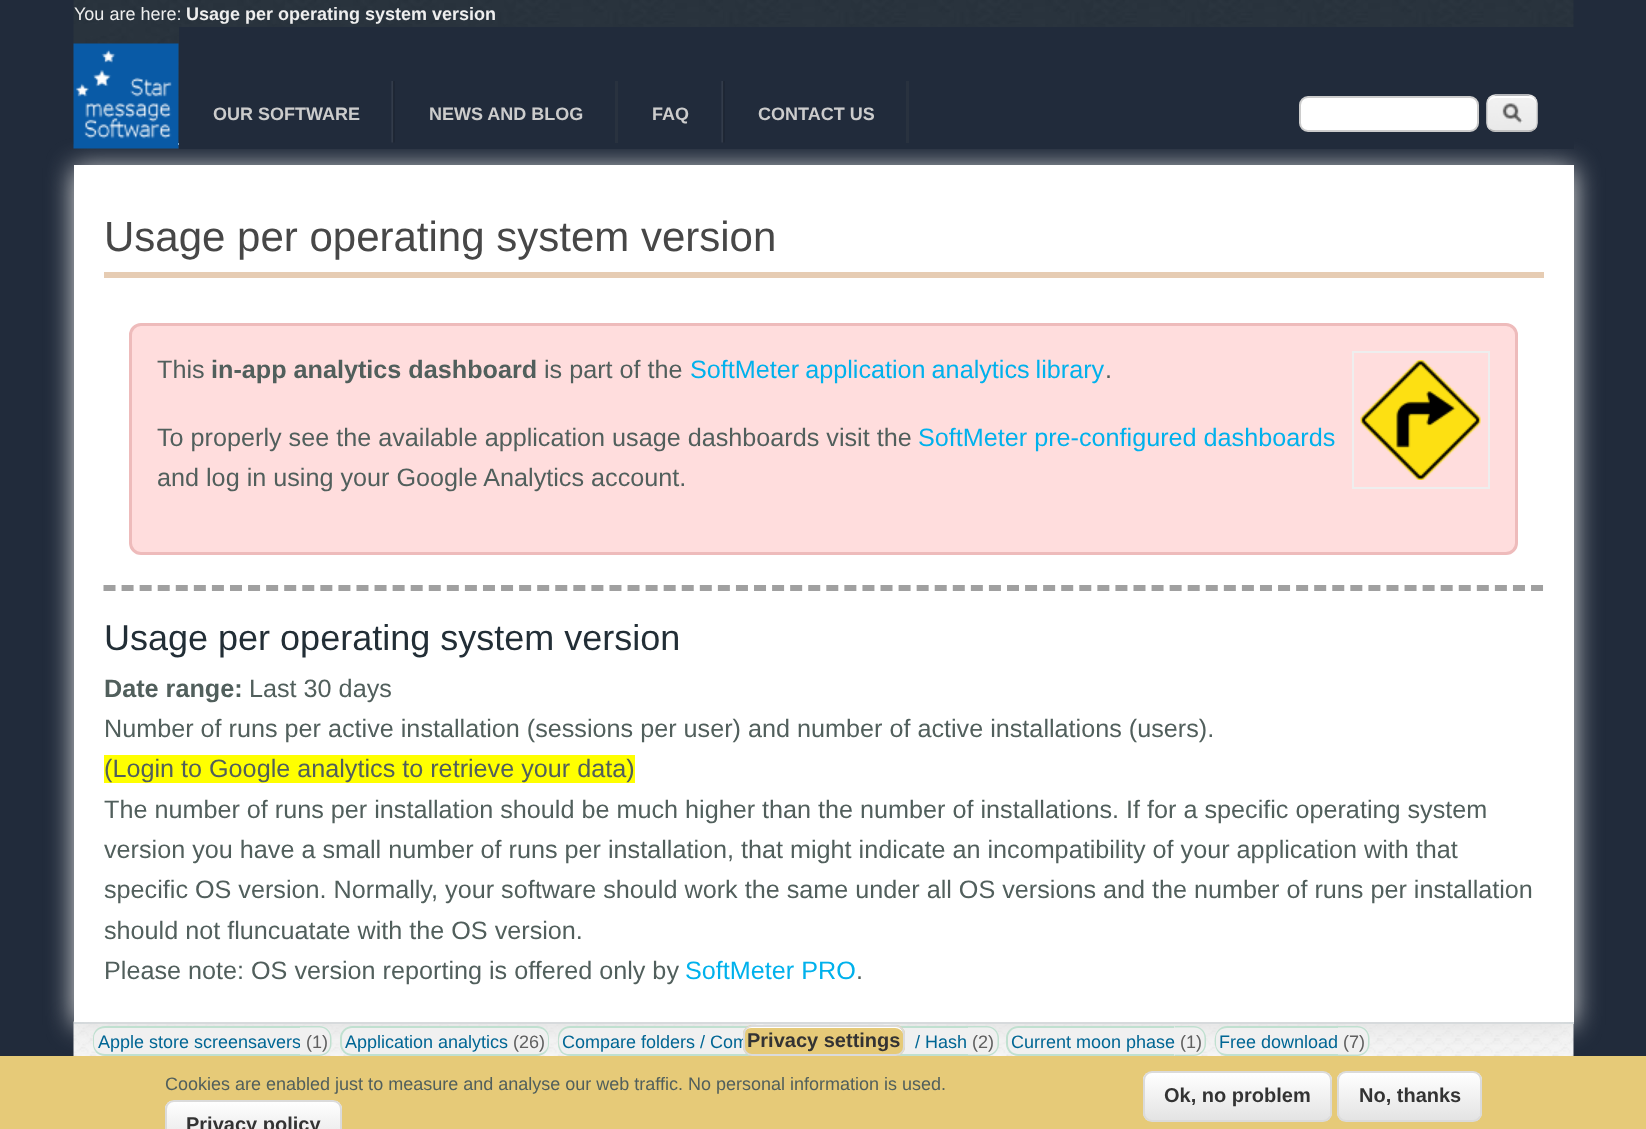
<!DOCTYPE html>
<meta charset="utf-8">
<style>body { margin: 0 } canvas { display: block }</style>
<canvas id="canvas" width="1646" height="1129"></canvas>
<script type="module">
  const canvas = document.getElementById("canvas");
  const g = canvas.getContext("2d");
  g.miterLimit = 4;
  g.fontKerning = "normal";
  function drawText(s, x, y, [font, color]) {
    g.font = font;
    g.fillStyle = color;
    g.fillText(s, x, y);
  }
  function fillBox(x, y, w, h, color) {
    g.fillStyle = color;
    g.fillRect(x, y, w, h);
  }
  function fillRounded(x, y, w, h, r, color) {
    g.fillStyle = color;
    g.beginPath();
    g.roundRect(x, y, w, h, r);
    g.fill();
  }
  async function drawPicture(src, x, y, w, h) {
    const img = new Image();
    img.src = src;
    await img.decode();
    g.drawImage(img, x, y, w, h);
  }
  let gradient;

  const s1 = ["18px Liberation Sans", "#EEEEEE"];
  const s2 = ["bold 18px Liberation Sans", "#EEEEEE"];
  const s3 = ["bold 18px Liberation Sans", "#CCCCCC"];
  const s4 = ["42px Liberation Sans", "#474747"];
  const s5 = ["25.2px Liberation Sans", "#515F5C"];
  const s6 = ["bold 25.2px Liberation Sans", "#515F5C"];
  const s7 = ["25.2px Liberation Sans", "#00B1EC"];
  const s8 = ["36px Liberation Sans", "#222E36"];
  const s9 = ["18px Liberation Sans", "#006694"];
  const s10 = ["bold 20px Liberation Sans", "#333333"];
  const s11 = ["18px Liberation Sans", "#515F5C"];
  const s12 = ["18px Liberation Sans", "#606060"];

  fillBox(0, 0, 1646, 1129, "#212B3B");
  await drawPicture("pic1.png", 73, 0, 1501, 144);
  drawText("You are here:", 74, 20, s1);
  drawText("Usage per operating system version", 186, 20, s2);
  await drawPicture("pic6.png", 73, 1021, 1501, 35);
  fillBox(74, 1022, 1500, 2, "#CFD7DB");
  g.fillStyle = "#DDDDDD";
  g.filter = "blur(13.5px)";
  g.beginPath();
  g.rect(74, 168, 1500, 857);
  g.fill();
  g.filter = "none";
  fillBox(178, 143, 1, 2, "#EBEBEB");
  await drawPicture("pic2.png", 73, 43, 106, 106);
  fillBox(179, 27, 1395, 122, "#212B3B");
  await drawPicture("pic3.png", 391, 81, 4, 62);
  drawText("OUR SOFTWARE", 213, 120, s3);
  fillBox(615, 81, 3, 62, "#29323F");
  drawText("NEWS AND BLOG", 429, 120, s3);
  await drawPicture("pic3.png", 721, 81, 4, 62);
  drawText("FAQ", 652, 120, s3);
  fillBox(906, 81, 3, 62, "#29323F");
  drawText("CONTACT US", 758, 120, s3);
  g.fillStyle = "#FFFFFF";
  g.beginPath();
  g.roundRect(1300, 97, 178, 34, 8);
  g.fill();
  g.strokeStyle = "#CCCCCC";
  g.lineWidth = 2;
  g.stroke();
  await drawPicture("pic4.png", 1486, 96, 52, 36);
  g.beginPath();
  g.moveTo(1496, 98);
  g.lineTo(1528, 98);
  g.bezierCurveTo(1533, 98, 1536, 101, 1536, 105);
  g.bezierCurveTo(1536, 96, 1530, 96, 1523, 96);
  g.lineTo(1501, 96);
  g.bezierCurveTo(1494, 96, 1488, 96, 1488, 105);
  g.bezierCurveTo(1488, 101, 1491, 98, 1496, 98);
  g.closePath();
  g.fill();
  g.beginPath();
  g.moveTo(1489.5, 97.5);
  g.bezierCurveTo(1491, 96, 1493.5, 95, 1495.5, 95);
  g.lineTo(1528.5, 95);
  g.bezierCurveTo(1530.5, 95, 1533, 96, 1534.5, 97.5);
  g.strokeStyle = "#E4E4E4";
  g.lineWidth = 1.5;
  g.stroke();
  g.beginPath();
  g.moveTo(1534.5, 97.5);
  g.bezierCurveTo(1536, 99, 1537, 101.5, 1537, 103.5);
  g.lineTo(1537, 123);
  g.bezierCurveTo(1537, 125, 1536, 127.5, 1534.5, 129);
  g.strokeStyle = "#D2D2D2";
  g.stroke();
  g.beginPath();
  g.moveTo(1534.5, 129);
  g.bezierCurveTo(1533, 130.5, 1530.5, 131, 1528.5, 131);
  g.lineTo(1495.5, 131);
  g.bezierCurveTo(1493.5, 131, 1491, 130.5, 1489.5, 129);
  g.strokeStyle = "#B4B4B4";
  g.stroke();
  g.beginPath();
  g.moveTo(1489.5, 129);
  g.bezierCurveTo(1488, 127.5, 1487, 125, 1487, 123);
  g.lineTo(1487, 103.5);
  g.bezierCurveTo(1487, 101.5, 1488, 99, 1489.5, 97.5);
  g.strokeStyle = "#D2D2D2";
  g.stroke();
  fillBox(74, 165, 1500, 857, "#FFFFFF");
  fillBox(104, 272, 1440, 6, "#E6CCB3");
  drawText("Usage per operating system version", 104, 251, s4);
  g.fillStyle = "#FFDDDD";
  g.beginPath();
  g.roundRect(130.5, 324.5, 1386, 229, 10.5);
  g.fill();
  g.strokeStyle = "#EEBBBB";
  g.lineWidth = 3;
  g.stroke();
  drawText("This", 157, 378, s5);
  drawText("in-app analytics dashboard", 211, 378, s6);
  drawText("is part of the", 544, 378, s5);
  g.wordSpacing = "-1px";
  drawText("SoftMeter application analytics library", 690, 378, s7);
  g.wordSpacing = "0px";
  drawText(".", 1105, 378, s5);
  g.strokeStyle = "#EEEEEE";
  g.lineWidth = 2;
  g.strokeRect(1353, 352, 136, 136);
  await drawPicture("pic5.png", 1360, 360, 121, 120);
  drawText("To properly see the available application usage dashboards visit the", 157, 446, s5);
  drawText("SoftMeter pre-configured dashboards", 918, 446, s7);
  drawText("and log in using your Google Analytics account.", 157, 486, s5);
  g.beginPath();
  g.moveTo(103.5, 588);
  g.lineTo(1543.5, 588);
  g.strokeStyle = "#A0A0A0";
  g.lineWidth = 6;
  g.setLineDash([12, 6.07]);
  g.stroke();
  drawText("Usage per operating system version", 104, 650, s8);
  drawText("Date range:", 104, 697, s6);
  drawText("Last 30 days", 249, 697, s5);
  drawText("Number of runs per active installation (sessions per user) and number of active installations (users).", 104, 737, s5);
  fillBox(104, 755, 531, 28, "#FFFF00");
  drawText("(Login to Google analytics to retrieve your data)", 104, 777, s5);
  drawText("The number of runs per installation should be much higher than the number of installations. If for a specific operating system", 104, 818, s5);
  drawText("version you have a small number of runs per installation, that might indicate an incompatibility of your application with that", 104, 858, s5);
  drawText("specific OS version. Normally, your software should work the same under all OS versions and the number of runs per installation", 104, 898, s5);
  drawText("should not fluncuatate with the OS version.", 104, 939, s5);
  drawText("Please note: OS version reporting is offered only by", 104, 979, s5);
  drawText("SoftMeter PRO", 685, 979, s7);
  drawText(".", 856, 979, s5);
  g.fillStyle = "#F0F0F0";
  g.beginPath();
  g.roundRect(1215, 1026, 123, 30, [12, 0, 0, 12]);
  g.fill();
  g.fillStyle = "#C0E0D0";
  g.beginPath();
  g.moveTo(1227, 1026);
  g.lineTo(1338, 1026);
  g.lineTo(1338, 1056);
  g.lineTo(1246, 1056);
  g.bezierCurveTo(1244, 1056, 1228, 1058, 1222, 1055);
  g.bezierCurveTo(1211, 1050, 1212, 1026, 1227, 1026);
  g.closePath();
  g.moveTo(1227, 1028);
  g.lineTo(1338, 1028);
  g.lineTo(1338, 1054);
  g.lineTo(1227, 1054);
  g.bezierCurveTo(1221, 1054, 1216, 1050, 1216, 1044);
  g.lineTo(1216, 1038);
  g.bezierCurveTo(1216, 1032, 1221, 1028, 1227, 1028);
  g.closePath();
  g.fill("evenodd");
  fillBox(0, 1056, 1646, 73, "#E6CA78");
  g.fillStyle = "#F0F0F0";
  g.beginPath();
  g.roundRect(558, 1026, 269, 30, [12, 0, 0, 12]);
  g.fill();
  g.fillStyle = "#C0E0D0";
  g.beginPath();
  g.moveTo(570, 1026);
  g.lineTo(826, 1026);
  g.lineTo(826, 1056);
  g.lineTo(570, 1056);
  g.bezierCurveTo(563, 1056, 558, 1051, 558, 1044);
  g.lineTo(558, 1038);
  g.bezierCurveTo(558, 1031, 563, 1026, 570, 1026);
  g.closePath();
  g.moveTo(570, 1028);
  g.lineTo(826, 1028);
  g.lineTo(826, 1054);
  g.lineTo(570, 1054);
  g.bezierCurveTo(568, 1054, 566, 1054, 564, 1053);
  g.bezierCurveTo(556, 1047, 557, 1028, 570, 1028);
  g.closePath();
  g.fill("evenodd");
  drawText("Compare folders / Com", 562, 1048, s9);
  fillBox(901, 1028, 67, 26, "#F0F0F0");
  g.fillStyle = "#C0E0D0";
  g.beginPath();
  g.moveTo(879, 1026);
  g.lineTo(968, 1026);
  g.lineTo(968, 1056);
  g.lineTo(877, 1056);
  g.bezierCurveTo(863, 1053, 863, 1026, 879, 1026);
  g.closePath();
  g.moveTo(879, 1028);
  g.lineTo(968, 1028);
  g.lineTo(968, 1054);
  g.lineTo(879, 1054);
  g.bezierCurveTo(873, 1054, 868, 1050, 868, 1044);
  g.lineTo(868, 1038);
  g.bezierCurveTo(868, 1032, 873, 1028, 879, 1028);
  g.closePath();
  g.fill("evenodd");
  fillRounded(743, 1025, 162, 31, 9, "#E6CA78");
  g.fillStyle = "#FFFFFF";
  g.beginPath();
  g.moveTo(751, 1028);
  g.lineTo(895, 1028);
  g.bezierCurveTo(899, 1028, 903, 1031, 903, 1035);
  g.bezierCurveTo(903, 1020, 878, 1026, 871, 1026);
  g.lineTo(776, 1026);
  g.bezierCurveTo(769, 1026, 744, 1020, 744, 1035);
  g.bezierCurveTo(744, 1031, 747, 1028, 751, 1028);
  g.closePath();
  g.fill();
  g.beginPath();
  g.roundRect(744, 1026, 160, 29, 8);
  g.strokeStyle = "#DBDBDB";
  g.lineWidth = 2;
  g.setLineDash([]);
  g.stroke();
  drawText("Privacy settings", 747, 1047, s10);
  drawText("Cookies are enabled just to measure and analyse our web traffic. No personal information is used.", 165, 1090, s11);
  g.save();
  g.beginPath();
  g.roundRect(165, 1100, 177, 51, 9);
  g.clip();
  gradient = g.createLinearGradient(254, 1101, 254, 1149);
  gradient.addColorStop(0, "#FFFFFF");
  gradient.addColorStop(1, "#E3E3E3");
  g.fillStyle = gradient;
  g.fillRect(165, 1101, 177, 28);
  g.restore();
  g.fillStyle = "#FFFFFF";
  g.beginPath();
  g.moveTo(174, 1102);
  g.lineTo(333, 1102);
  g.bezierCurveTo(337, 1102, 340, 1106, 340, 1110);
  g.lineTo(340, 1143);
  g.lineTo(340, 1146);
  g.bezierCurveTo(340, 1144, 341, 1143, 341, 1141);
  g.lineTo(341, 1109);
  g.bezierCurveTo(341, 1105, 337, 1101, 333, 1101);
  g.lineTo(175, 1101);
  g.bezierCurveTo(172, 1101, 170, 1103, 168, 1105);
  g.bezierCurveTo(170, 1103, 172, 1102, 174, 1102);
  g.closePath();
  g.fill();
  g.beginPath();
  g.roundRect(166, 1101, 175, 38, 8);
  g.stroke();
  drawText("Privacy policy", 186, 1131, s10);
  g.save();
  g.beginPath();
  g.roundRect(1143, 1071, 189, 51, 9);
  g.clip();
  gradient = g.createLinearGradient(1238, 1073, 1238, 1121);
  gradient.addColorStop(0, "#FFFFFF");
  gradient.addColorStop(1, "#E3E3E3");
  g.fillStyle = gradient;
  g.fillRect(1143, 1073, 189, 48);
  g.restore();
  g.fillStyle = "#FFFFFF";
  g.beginPath();
  g.moveTo(1152, 1074);
  g.lineTo(1323, 1074);
  g.bezierCurveTo(1327, 1074, 1330, 1077, 1330, 1082);
  g.lineTo(1330, 1114);
  g.lineTo(1329, 1118);
  g.bezierCurveTo(1330, 1117, 1331, 1115, 1331, 1113);
  g.lineTo(1331, 1081);
  g.bezierCurveTo(1331, 1077, 1327, 1073, 1323, 1073);
  g.lineTo(1153, 1073);
  g.bezierCurveTo(1151, 1073, 1148, 1074, 1147, 1076);
  g.bezierCurveTo(1148, 1075, 1150, 1074, 1152, 1074);
  g.closePath();
  g.fill();
  g.beginPath();
  g.roundRect(1144, 1072, 187, 49, 8);
  g.stroke();
  drawText("Ok, no problem", 1164, 1102, s10);
  g.save();
  g.beginPath();
  g.roundRect(1337, 1071, 145, 51, 9);
  g.clip();
  gradient = g.createLinearGradient(1409, 1073, 1409, 1121);
  gradient.addColorStop(0, "#FFFFFF");
  gradient.addColorStop(1, "#E3E3E3");
  g.fillStyle = gradient;
  g.fillRect(1337, 1073, 145, 48);
  g.restore();
  g.fillStyle = "#FFFFFF";
  g.beginPath();
  g.moveTo(1346, 1074);
  g.lineTo(1473, 1074);
  g.bezierCurveTo(1477, 1074, 1480, 1077, 1480, 1082);
  g.lineTo(1480, 1114);
  g.lineTo(1479, 1118);
  g.bezierCurveTo(1480, 1117, 1481, 1115, 1481, 1113);
  g.lineTo(1481, 1081);
  g.bezierCurveTo(1481, 1077, 1477, 1073, 1473, 1073);
  g.lineTo(1346, 1073);
  g.bezierCurveTo(1342, 1073, 1338, 1077, 1338, 1081);
  g.lineTo(1338, 1082);
  g.bezierCurveTo(1338, 1077, 1341, 1074, 1346, 1074);
  g.closePath();
  g.fill();
  g.beginPath();
  g.roundRect(1338, 1072, 143, 49, 8);
  g.stroke();
  drawText("No, thanks", 1359, 1102, s10);
  g.fillStyle = "#F0F0F0";
  g.beginPath();
  g.roundRect(93, 1026, 207, 30, [12, 0, 0, 12]);
  g.fill();
  g.fillStyle = "#C0E0D0";
  g.beginPath();
  g.moveTo(105, 1026);
  g.lineTo(300, 1026);
  g.lineTo(300, 1056);
  g.lineTo(105, 1056);
  g.bezierCurveTo(98, 1056, 93, 1051, 93, 1044);
  g.lineTo(93, 1038);
  g.bezierCurveTo(93, 1031, 98, 1026, 105, 1026);
  g.closePath();
  g.moveTo(105, 1028);
  g.lineTo(300, 1028);
  g.lineTo(300, 1054);
  g.lineTo(105, 1054);
  g.bezierCurveTo(99, 1054, 94, 1050, 94, 1044);
  g.lineTo(94, 1038);
  g.bezierCurveTo(94, 1032, 99, 1028, 105, 1028);
  g.closePath();
  g.fill("evenodd");
  drawText("Apple store screensavers", 98, 1048, s9);
  g.fillStyle = "#F0F0F0";
  g.beginPath();
  g.roundRect(300, 1026, 32, 30, [0, 12, 12, 0]);
  g.fill();
  g.fillStyle = "#C0E0D0";
  g.beginPath();
  g.moveTo(300, 1026);
  g.lineTo(319.5, 1026);
  g.bezierCurveTo(326, 1026, 331.5, 1031.5, 331.5, 1038);
  g.lineTo(331.5, 1044);
  g.bezierCurveTo(331.5, 1050.5, 326, 1056, 319.5, 1056);
  g.lineTo(300, 1056);
  g.closePath();
  g.moveTo(300, 1027.5);
  g.lineTo(319.5, 1027.5);
  g.bezierCurveTo(325.5, 1027.5, 330, 1032, 330, 1038);
  g.lineTo(330, 1044);
  g.bezierCurveTo(330, 1050, 325.5, 1054.5, 319.5, 1054.5);
  g.lineTo(300, 1054.5);
  g.closePath();
  g.fill("evenodd");
  drawText("(1)", 306, 1048, s12);
  g.fillStyle = "#F0F0F0";
  g.beginPath();
  g.roundRect(341, 1026, 166, 30, [12, 0, 0, 12]);
  g.fill();
  g.fillStyle = "#C0E0D0";
  g.beginPath();
  g.moveTo(352, 1026);
  g.lineTo(507, 1026);
  g.lineTo(507, 1056);
  g.lineTo(352, 1056);
  g.bezierCurveTo(346, 1056, 340, 1051, 340, 1044);
  g.lineTo(340, 1038);
  g.bezierCurveTo(340, 1031, 346, 1026, 352, 1026);
  g.closePath();
  g.moveTo(352, 1028);
  g.lineTo(507, 1028);
  g.lineTo(507, 1054);
  g.lineTo(352, 1054);
  g.bezierCurveTo(347, 1054, 342, 1050, 342, 1044);
  g.lineTo(342, 1038);
  g.bezierCurveTo(342, 1032, 347, 1028, 352, 1028);
  g.closePath();
  g.fill("evenodd");
  g.fillStyle = "#F0F0F0";
  g.beginPath();
  g.roundRect(507, 1026, 42, 30, [0, 12, 12, 0]);
  g.fill();
  g.fillStyle = "#C0E0D0";
  g.beginPath();
  g.moveTo(507, 1026);
  g.lineTo(537, 1026);
  g.bezierCurveTo(544, 1026, 549, 1031, 549, 1038);
  g.lineTo(549, 1044);
  g.bezierCurveTo(549, 1051, 544, 1056, 537, 1056);
  g.lineTo(507, 1056);
  g.closePath();
  g.moveTo(507, 1028);
  g.lineTo(537, 1028);
  g.bezierCurveTo(543, 1028, 548, 1032, 548, 1038);
  g.lineTo(548, 1044);
  g.bezierCurveTo(548, 1050, 543, 1054, 537, 1054);
  g.lineTo(507, 1054);
  g.closePath();
  g.fill("evenodd");
  drawText("Application analytics", 345, 1048, s9);
  drawText("(26)", 513, 1048, s12);
  drawText("/ Hash", 915, 1048, s9);
  g.fillStyle = "#F0F0F0";
  g.beginPath();
  g.roundRect(968, 1026, 31, 30, [0, 12, 12, 0]);
  g.fill();
  g.fillStyle = "#C0E0D0";
  g.beginPath();
  g.moveTo(967.5, 1026);
  g.lineTo(987, 1026);
  g.bezierCurveTo(993.5, 1026, 999, 1031.5, 999, 1038);
  g.lineTo(999, 1044);
  g.bezierCurveTo(999, 1050.5, 993.5, 1056, 987, 1056);
  g.lineTo(967.5, 1056);
  g.closePath();
  g.moveTo(967.5, 1027.5);
  g.lineTo(987, 1027.5);
  g.bezierCurveTo(993, 1027.5, 997.5, 1032, 997.5, 1038);
  g.lineTo(997.5, 1044);
  g.bezierCurveTo(997.5, 1050, 993, 1054.5, 987, 1054.5);
  g.lineTo(967.5, 1054.5);
  g.closePath();
  g.fill("evenodd");
  drawText("(2)", 972, 1048, s12);
  g.fillStyle = "#F0F0F0";
  g.beginPath();
  g.roundRect(1007, 1026, 168, 30, [12, 0, 0, 12]);
  g.fill();
  g.fillStyle = "#C0E0D0";
  g.beginPath();
  g.moveTo(1018, 1026);
  g.lineTo(1174, 1026);
  g.lineTo(1174, 1056);
  g.lineTo(1018, 1056);
  g.bezierCurveTo(1012, 1056, 1006, 1051, 1006, 1044);
  g.lineTo(1006, 1038);
  g.bezierCurveTo(1006, 1031, 1012, 1026, 1018, 1026);
  g.closePath();
  g.moveTo(1018, 1028);
  g.lineTo(1174, 1028);
  g.lineTo(1174, 1054);
  g.lineTo(1018, 1054);
  g.bezierCurveTo(1013, 1054, 1008, 1050, 1008, 1044);
  g.lineTo(1008, 1038);
  g.bezierCurveTo(1008, 1032, 1013, 1028, 1018, 1028);
  g.closePath();
  g.fill("evenodd");
  g.fillStyle = "#F0F0F0";
  g.beginPath();
  g.roundRect(1175, 1026, 31, 30, [0, 12, 12, 0]);
  g.fill();
  g.fillStyle = "#C0E0D0";
  g.beginPath();
  g.moveTo(1174.5, 1026);
  g.lineTo(1194, 1026);
  g.bezierCurveTo(1200.5, 1026, 1206, 1031.5, 1206, 1038);
  g.lineTo(1206, 1044);
  g.bezierCurveTo(1206, 1050.5, 1200.5, 1056, 1194, 1056);
  g.lineTo(1174.5, 1056);
  g.closePath();
  g.moveTo(1174.5, 1027.5);
  g.lineTo(1194, 1027.5);
  g.bezierCurveTo(1200, 1027.5, 1204.5, 1032, 1204.5, 1038);
  g.lineTo(1204.5, 1044);
  g.bezierCurveTo(1204.5, 1050, 1200, 1054.5, 1194, 1054.5);
  g.lineTo(1174.5, 1054.5);
  g.closePath();
  g.fill("evenodd");
  drawText("Current moon phase", 1011, 1048, s9);
  drawText("(1)", 1180, 1048, s12);
  drawText("Free download", 1219, 1048, s9);
  g.fillStyle = "#F0F0F0";
  g.beginPath();
  g.roundRect(1338, 1026, 32, 30, [0, 12, 12, 0]);
  g.fill();
  g.fillStyle = "#C0E0D0";
  g.beginPath();
  g.moveTo(1338, 1026);
  g.lineTo(1357.5, 1026);
  g.bezierCurveTo(1364, 1026, 1369.5, 1031.5, 1369.5, 1038);
  g.lineTo(1369.5, 1044);
  g.bezierCurveTo(1369.5, 1050.5, 1364, 1056, 1357.5, 1056);
  g.lineTo(1338, 1056);
  g.closePath();
  g.moveTo(1338, 1027.5);
  g.lineTo(1357.5, 1027.5);
  g.bezierCurveTo(1363.5, 1027.5, 1368, 1032, 1368, 1038);
  g.lineTo(1368, 1044);
  g.bezierCurveTo(1368, 1050, 1363.5, 1054.5, 1357.5, 1054.5);
  g.lineTo(1338, 1054.5);
  g.closePath();
  g.fill("evenodd");
  drawText("(7)", 1343, 1048, s12);
</script>
